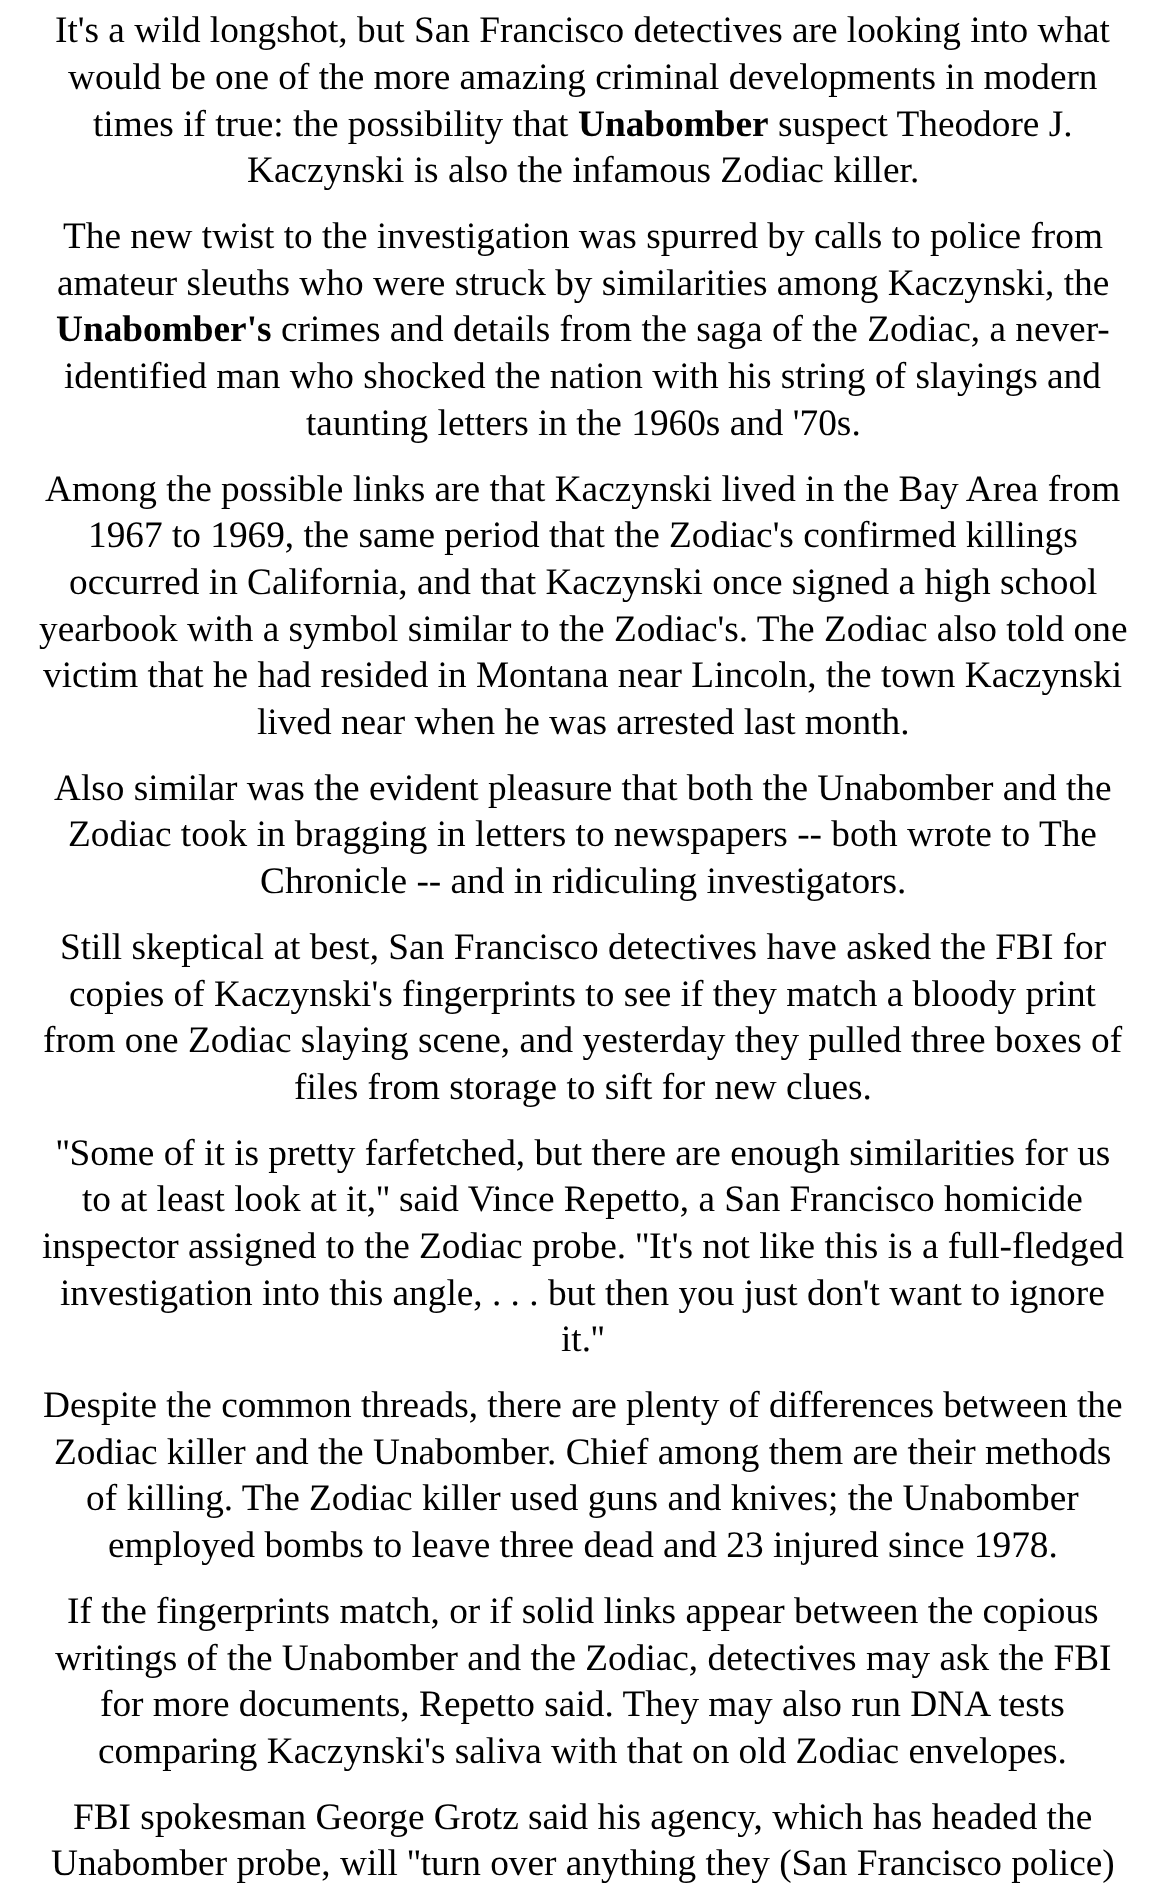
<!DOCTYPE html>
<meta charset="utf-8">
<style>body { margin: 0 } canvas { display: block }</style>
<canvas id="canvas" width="1165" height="1892"></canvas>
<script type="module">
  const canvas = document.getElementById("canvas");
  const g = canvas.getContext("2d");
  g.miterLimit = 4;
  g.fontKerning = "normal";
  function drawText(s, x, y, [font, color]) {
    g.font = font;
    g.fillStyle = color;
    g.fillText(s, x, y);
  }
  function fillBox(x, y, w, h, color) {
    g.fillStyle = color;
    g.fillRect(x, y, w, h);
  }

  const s1 = ["37.3px Liberation Serif", "#000000"];
  const s2 = ["bold 37.3px Liberation Serif", "#000000"];

  fillBox(0, 0, 1165, 1892, "#FFFFFF");
  drawText("It's a wild longshot, but San Francisco detectives are looking into what", 55, 42, s1);
  drawText("would be one of the more amazing criminal developments in modern", 68, 89, s1);
  drawText("times if true: the possibility that", 93, 136, s1);
  drawText("Unabomber", 578, 136, s2);
  drawText("suspect Theodore J.", 778, 136, s1);
  drawText("Kaczynski is also the infamous Zodiac killer.", 247, 182, s1);
  drawText("The new twist to the investigation was spurred by calls to police from", 63, 248, s1);
  drawText("amateur sleuths who were struck by similarities among Kaczynski, the", 57, 295, s1);
  drawText("Unabomber's", 56, 341, s2);
  drawText("crimes and details from the saga of the Zodiac, a never-", 281, 341, s1);
  drawText("identified man who shocked the nation with his string of slayings and", 64, 388, s1);
  drawText("taunting letters in the 1960s and '70s.", 306, 435, s1);
  drawText("Among the possible links are that Kaczynski lived in the Bay Area from", 45, 501, s1);
  drawText("1967 to 1969, the same period that the Zodiac's confirmed killings", 88, 547, s1);
  drawText("occurred in California, and that Kaczynski once signed a high school", 69, 594, s1);
  drawText("yearbook with a symbol similar to the Zodiac's. The Zodiac also told one", 39, 641, s1);
  drawText("victim that he had resided in Montana near Lincoln, the town Kaczynski", 43, 687, s1);
  drawText("lived near when he was arrested last month.", 257, 734, s1);
  drawText("Also similar was the evident pleasure that both the Unabomber and the", 54, 800, s1);
  drawText("Zodiac took in bragging in letters to newspapers -- both wrote to The", 68, 846, s1);
  drawText("Chronicle -- and in ridiculing investigators.", 260, 893, s1);
  drawText("Still skeptical at best, San Francisco detectives have asked the FBI for", 60, 959, s1);
  drawText("copies of Kaczynski's fingerprints to see if they match a bloody print", 69, 1006, s1);
  drawText("from one Zodiac slaying scene, and yesterday they pulled three boxes of", 43, 1052, s1);
  drawText("files from storage to sift for new clues.", 294, 1099, s1);
  drawText("''Some of it is pretty farfetched, but there are enough similarities for us", 56, 1165, s1);
  drawText("to at least look at it,'' said Vince Repetto, a San Francisco homicide", 82, 1211, s1);
  drawText("inspector assigned to the Zodiac probe. ''It's not like this is a full-fledged", 42, 1258, s1);
  drawText("investigation into this angle, . . . but then you just don't want to ignore", 60, 1305, s1);
  drawText("it.''", 561, 1351, s1);
  drawText("Despite the common threads, there are plenty of differences between the", 43, 1417, s1);
  drawText("Zodiac killer and the Unabomber. Chief among them are their", 54, 1464, s1);
  drawText("methods", 985, 1464, s1);
  drawText("of killing. The Zodiac killer used guns and knives; the Unabomber", 86, 1510, s1);
  drawText("employed bombs to leave three dead and 23 injured since 1978.", 108, 1557, s1);
  drawText("If the fingerprints match, or if solid links appear between the copious", 67, 1623, s1);
  drawText("writings of the Unabomber and the Zodiac, detectives may ask the FBI", 55, 1670, s1);
  drawText("for more documents, Repetto said. They may also run DNA tests", 100, 1716, s1);
  drawText("comparing Kaczynski's saliva with that on old Zodiac envelopes.", 98, 1763, s1);
  drawText("FBI spokesman George Grotz said his agency, which has headed the", 73, 1829, s1);
  drawText("Unabomber probe, will ''turn over anything they (San Francisco police)", 51, 1875, s1);
</script>
